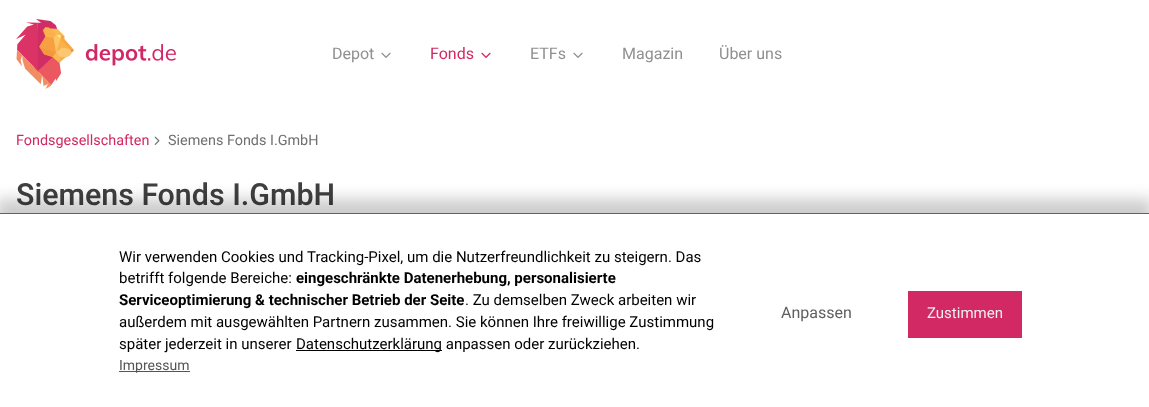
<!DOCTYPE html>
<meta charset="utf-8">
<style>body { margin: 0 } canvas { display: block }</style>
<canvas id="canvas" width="1149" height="407"></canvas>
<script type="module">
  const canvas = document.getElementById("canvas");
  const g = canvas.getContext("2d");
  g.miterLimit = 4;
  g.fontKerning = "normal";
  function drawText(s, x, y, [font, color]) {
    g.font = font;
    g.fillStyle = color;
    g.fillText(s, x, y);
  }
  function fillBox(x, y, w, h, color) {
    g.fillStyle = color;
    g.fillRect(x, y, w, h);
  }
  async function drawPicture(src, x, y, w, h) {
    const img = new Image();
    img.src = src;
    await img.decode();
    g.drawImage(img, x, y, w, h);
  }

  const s1 = ["16px Heebo", "#909090"];
  const s2 = ["16px Heebo", "#D22863"];
  const s3 = ["14.4px Heebo", "#D22863"];
  const s4 = ["14.4px Heebo", "#707070"];
  const s5 = ["500 30.4px Heebo", "#404040"];
  const s6 = ["15px Roboto", "#000000"];
  const s7 = ["bold 15px Roboto", "#000000"];
  const s8 = ["14px Roboto", "#555555"];
  const s9 = ["16px Roboto", "#606060"];
  const s10 = ["15px Roboto", "#EEEEEE"];

  fillBox(0, 0, 1149, 407, "#FFFFFF");
  await drawPicture("pic1.png", 16, 19, 160, 70);
  drawText("Depot", 332, 59, s1);
  await drawPicture("pic2.png", 381, 52, 10, 6);
  drawText("Fonds", 430, 59, s2);
  await drawPicture("pic3.png", 481, 52, 10, 6);
  drawText("ETFs", 530, 59, s1);
  await drawPicture("pic2.png", 573, 52, 10, 6);
  drawText("Magazin", 622, 59, s1);
  drawText("Über uns", 719, 59, s1);
  drawText("Fondsgesellschaften", 16, 145, s3);
  await drawPicture("pic4.png", 154, 136, 6, 9);
  drawText("Siemens Fonds I.GmbH", 168, 145, s4);
  drawText("Siemens Fonds I.GmbH", 16, 205, s5);
  g.fillStyle = "rgba(0, 0, 0, 0.2)";
  g.filter = "blur(7.5px)";
  g.beginPath();
  g.rect(-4, 199, 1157, 202);
  g.fill();
  g.filter = "none";
  fillBox(0, 214, 1149, 193, "#FFFFFF");
  fillBox(0, 213, 1149, 1, "#D22863");
  drawText("Wir verwenden Cookies und Tracking-Pixel, um die Nutzerfreundlichkeit zu steigern. Das", 119, 262, s6);
  drawText("betrifft folgende Bereiche:", 119, 283, s6);
  drawText("eingeschränkte Datenerhebung, personalisierte", 296, 283, s7);
  drawText("Serviceoptimierung & technischer Betrieb der Seite", 119, 305, s7);
  drawText(". Zu demselben Zweck arbeiten wir", 465, 305, s6);
  drawText("außerdem mit ausgewählten Partnern zusammen. Sie können Ihre freiwillige Zustimmung", 119, 327, s6);
  drawText("später jederzeit in unserer", 119, 349, s6);
  fillBox(296, 350, 146, 1, "#000000");
  drawText("Datenschutzerklärung anpassen oder zurückziehen.", 296, 349, s6);
  fillBox(119, 371, 71, 1, "#555555");
  drawText("Impressum", 119, 370, s8);
  drawText("Anpassen", 781, 318, s9);
  fillBox(908, 291, 114, 47, "#D22863");
  drawText("Zustimmen", 927, 318, s10);
</script>
